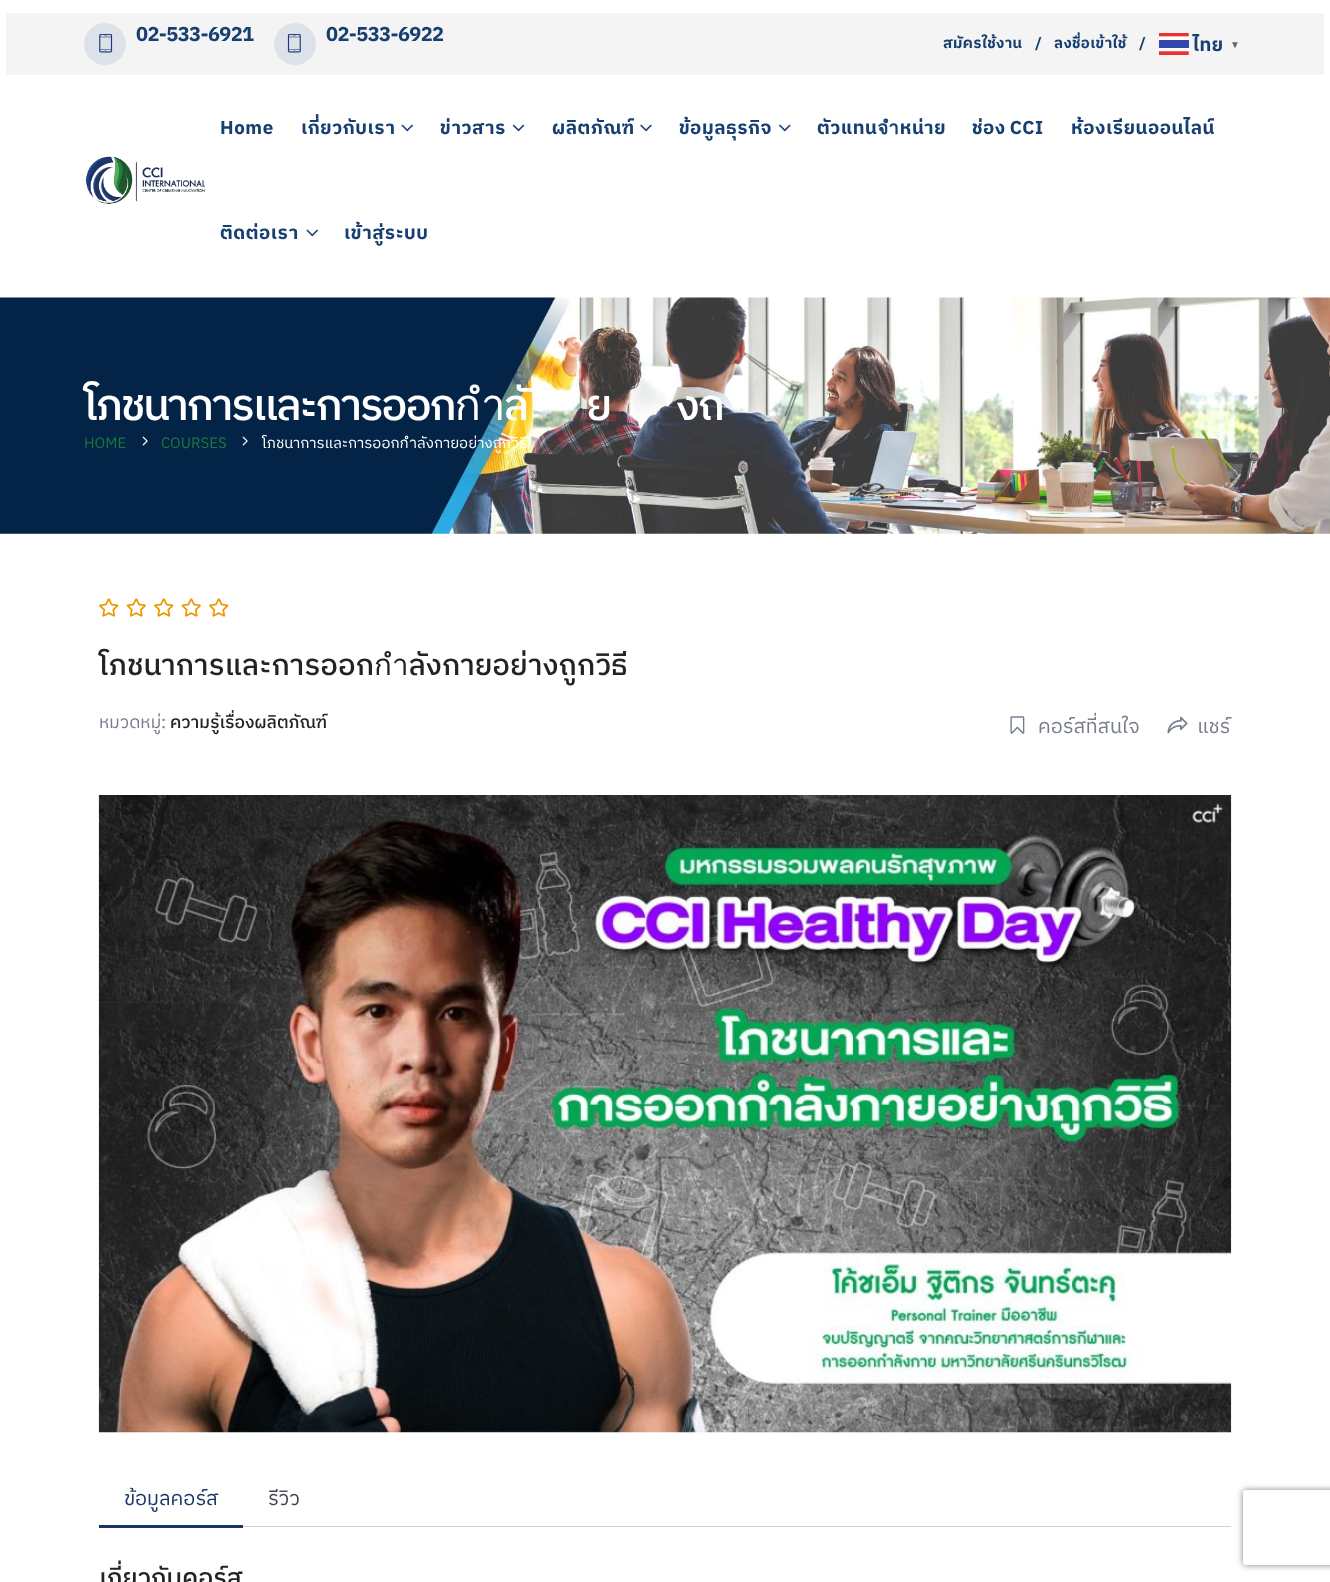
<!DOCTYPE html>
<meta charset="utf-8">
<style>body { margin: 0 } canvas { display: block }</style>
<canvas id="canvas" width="1330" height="1582"></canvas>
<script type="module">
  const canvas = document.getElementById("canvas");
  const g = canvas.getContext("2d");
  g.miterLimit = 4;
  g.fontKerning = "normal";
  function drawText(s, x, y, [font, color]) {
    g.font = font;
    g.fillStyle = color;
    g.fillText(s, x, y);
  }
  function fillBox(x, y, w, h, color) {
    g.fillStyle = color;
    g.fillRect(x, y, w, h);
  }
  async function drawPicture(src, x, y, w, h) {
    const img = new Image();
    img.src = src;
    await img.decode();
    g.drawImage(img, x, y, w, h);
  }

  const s1 = ["bold 20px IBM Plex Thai", "#183F72"];
  const s2 = ["bold 15px IBM Plex Thai", "#183F72"];
  const s3 = ["bold 18.75px IBM Plex Thai", "#183F72"];
  const s4 = ["bold 10px Liberation Sans", "#666666"];
  const s5 = ["500 43.75px IBM Plex Thai", "#FFFFFF"];
  const s6 = ["15px IBM Plex Thai", "#1C793B"];
  const s7 = ["15px IBM Plex Thai", "#FFFFFF"];
  const s8 = ["500 29.5px IBM Plex Thai", "#212327"];
  const s9 = ["17.5px IBM Plex Thai", "#767C8E"];
  const s10 = ["500 17.5px IBM Plex Thai", "#212327"];
  const s11 = ["20px IBM Plex Thai", "#767C8E"];
  const s12 = ["20px IBM Plex Thai", "#193766"];
  const s13 = ["20px IBM Plex Thai", "#41454F"];
  const s14 = ["500 25px IBM Plex Thai", "#212327"];

  fillBox(0, 0, 1330, 1582, "#FFFFFF");
  fillBox(6, 13, 1318, 62, "#F4F4F4");
  g.fillStyle = "#DDE2EA";
  g.beginPath();
  g.arc(105, 44, 21, 0, Math.PI * 2);
  g.fill();
  await drawPicture("pic1.png", 99, 34, 14, 19);
  g.letterSpacing = "-0.6px";
  drawText("02-533-6921", 136, 41, s1);
  g.fillStyle = "#DDE2EA";
  g.beginPath();
  g.arc(295, 44, 21, 0, Math.PI * 2);
  g.fill();
  await drawPicture("pic2.png", 287, 34, 14, 19);
  drawText("02-533-6922", 326, 41, s1);
  g.letterSpacing = "0.4px";
  drawText("สมัครใช้งาน", 943, 48, s2);
  drawText("/", 1035, 48, s2);
  drawText("ลงชื่อเข้าใช้", 1054, 48, s2);
  drawText("/", 1139, 48, s2);
  await drawPicture("pic3.png", 1159, 33, 30, 22);
  drawText("ไทย", 1193, 51, s3);
  drawText("▼", 1230, 48, s4);
  await drawPicture("pic4.png", 85, 156, 120, 48);
  g.letterSpacing = "0.6px";
  drawText("Home", 220, 134, s3);
  drawText("เกี่ยวกับเรา", 301, 134, s3);
  await drawPicture("pic5.png", 401, 124, 12, 8);
  drawText("ข่าวสาร", 440, 134, s3);
  await drawPicture("pic6.png", 512, 124, 13, 8);
  drawText("ผลิตภัณฑ์", 552, 134, s3);
  await drawPicture("pic7.png", 640, 124, 12, 8);
  drawText("ข้อมูลธุรกิจ", 679, 134, s3);
  await drawPicture("pic8.png", 779, 124, 12, 8);
  drawText("ตัวแทนจำหน่าย", 817, 134, s3);
  g.wordSpacing = "-1px";
  drawText("ช่อง CCI", 972, 134, s3);
  g.wordSpacing = "0px";
  drawText("ห้องเรียนออนไลน์", 1071, 134, s3);
  drawText("ติดต่อเรา", 220, 239, s3);
  await drawPicture("pic5.png", 306, 229, 12, 8);
  drawText("เข้าสู่ระบบ", 344, 239, s3);
  await drawPicture("pic9.png", 0, 297, 1330, 237);
  g.letterSpacing = "-2.2px";
  drawText("โภชนาการและการออกกำลั", 84, 420, s5);
  drawText("ย", 586, 420, s5);
  drawText("งถ", 676, 420, s5);
  g.letterSpacing = "0px";
  drawText("HOME", 84, 448, s6);
  await drawPicture("pic10.png", 142, 436, 6, 10);
  drawText("COURSES", 161, 448, s6);
  await drawPicture("pic10.png", 242, 436, 6, 10);
  drawText("โภชนาการและการออกกำลังกายอย่างถูกวิธี", 262, 448, s7);
  await drawPicture("pic11.png", 99, 598, 20, 19);
  await drawPicture("pic12.png", 126, 598, 20, 19);
  await drawPicture("pic11.png", 154, 598, 20, 19);
  await drawPicture("pic12.png", 181, 598, 20, 19);
  await drawPicture("pic11.png", 209, 598, 20, 19);
  drawText("โภชนาการและการออกกำลังกายอย่างถูกวิธี", 99, 675, s8);
  drawText("หมวดหมู่:", 99, 728, s9);
  drawText("ความรู้เรื่องผลิตภัณฑ์", 170, 728, s10);
  await drawPicture("pic13.png", 1010, 716, 15, 18);
  drawText("คอร์สที่สนใจ", 1038, 733, s11);
  await drawPicture("pic14.png", 1167, 716, 21, 18);
  drawText("แชร์", 1197, 733, s11);
  await drawPicture("pic15.png", 98, 795, 1134, 638);
  fillBox(243, 1526, 988, 1, "#CDCFD5");
  fillBox(99, 1525, 144, 3, "#193766");
  drawText("ข้อมูลคอร์ส", 124, 1505, s12);
  drawText("รีวิว", 268, 1505, s13);
  drawText("เกี่ยวกับคอร์ส", 99, 1586, s14);
  g.save();
  g.beginPath();
  g.moveTo(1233, 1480);
  g.lineTo(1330, 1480);
  g.lineTo(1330, 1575);
  g.lineTo(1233, 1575);
  g.closePath();
  g.moveTo(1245.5, 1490);
  g.lineTo(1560.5, 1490);
  g.bezierCurveTo(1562, 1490, 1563, 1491, 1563, 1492.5);
  g.lineTo(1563, 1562.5);
  g.bezierCurveTo(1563, 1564, 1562, 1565, 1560.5, 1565);
  g.lineTo(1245.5, 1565);
  g.bezierCurveTo(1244, 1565, 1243, 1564, 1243, 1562.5);
  g.lineTo(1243, 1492.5);
  g.bezierCurveTo(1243, 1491, 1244, 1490, 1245.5, 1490);
  g.closePath();
  g.clip("evenodd");
  g.fillStyle = "#808080";
  g.filter = "blur(3px)";
  g.beginPath();
  g.roundRect(1243, 1490, 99, 75, 2.5);
  g.fill();
  g.filter = "none";
  g.restore();
</script>
